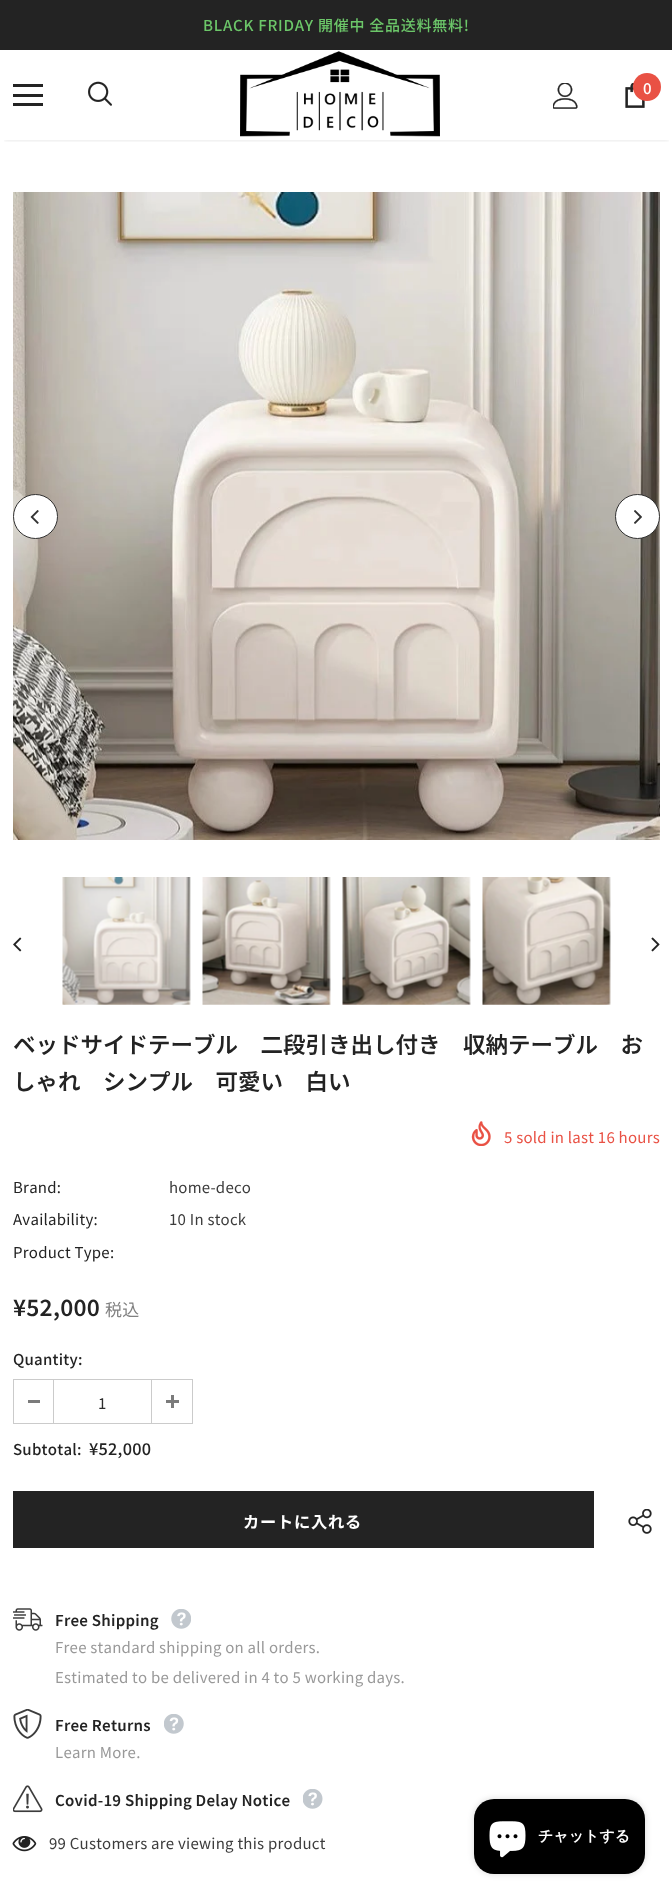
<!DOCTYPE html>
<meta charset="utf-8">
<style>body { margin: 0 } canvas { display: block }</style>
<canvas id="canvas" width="672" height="1900"></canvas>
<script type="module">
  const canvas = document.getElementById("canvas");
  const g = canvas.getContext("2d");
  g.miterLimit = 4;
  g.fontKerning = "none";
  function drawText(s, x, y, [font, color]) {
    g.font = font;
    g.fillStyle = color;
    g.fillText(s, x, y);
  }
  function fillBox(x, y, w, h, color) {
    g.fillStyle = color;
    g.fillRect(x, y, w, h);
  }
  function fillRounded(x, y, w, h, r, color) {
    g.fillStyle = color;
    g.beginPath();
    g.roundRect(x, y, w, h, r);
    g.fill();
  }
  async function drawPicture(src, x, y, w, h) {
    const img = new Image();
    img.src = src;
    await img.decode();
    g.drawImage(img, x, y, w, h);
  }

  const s1 = ["500 15px Noto Sans JP", "#6CC669"];
  const s2 = ["500 15px Noto Sans JP", "#FFFFFF"];
  const s3 = ["600 22.5px Noto Sans JP", "#232323"];
  const s4 = ["15px Noto Sans JP", "#E95144"];
  const s5 = ["15px Noto Sans JP", "#232323"];
  const s6 = ["15px Noto Sans JP", "#3C3C3C"];
  const s7 = ["17px Noto Sans JP", "#808080"];
  const s8 = ["500 15px Noto Sans JP", "#232323"];
  const s9 = ["15px Noto Sans JP", "#2D2D2D"];
  const s10 = ["500 16.25px Noto Sans JP", "#232323"];
  const s11 = ["bold 16.25px Noto Sans JP", "#FFFFFF"];
  const s12 = ["600 15px Noto Sans JP", "#232323"];
  const s13 = ["15px Noto Sans JP", "#999999"];
  const s14 = ["bold 15px WenQuanYi Zen Hei", "#FFFFFF"];

  fillBox(0, 0, 672, 1900, "#FFFFFF");
  fillBox(0, 0, 672, 50, "#232323");
  g.letterSpacing = "0.75px";
  drawText("BLACK FRIDAY 開催中 全品送料無料!", 203, 31, s1);
  g.save();
  g.beginPath();
  g.rect(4, 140, 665, 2);
  g.clip();
  g.fillStyle = "rgba(0, 0, 0, 0.12)";
  g.filter = "blur(2px)";
  g.beginPath();
  g.rect(4, 58, 665, 82);
  g.fill();
  g.filter = "none";
  g.restore();
  fillBox(13, 84, 30, 3, "#232323");
  fillBox(13, 94, 30, 3, "#232323");
  fillBox(13, 103, 30, 3, "#232323");
  await drawPicture("pic1.png", 88, 81, 24, 25);
  await drawPicture("pic2.png", 240, 51, 200, 86);
  await drawPicture("pic3.png", 553, 83, 25, 26);
  await drawPicture("pic4.png", 625, 83, 20, 25);
  g.fillStyle = "#E95144";
  g.beginPath();
  g.arc(647, 87, 14, 0, Math.PI * 2);
  g.fill();
  g.letterSpacing = "0px";
  drawText("0", 643, 94, s2);
  await drawPicture("pic5.png", 13, 192, 647, 648);
  g.beginPath();
  g.arc(35.5, 516.5, 22, 0, Math.PI * 2);
  g.fill();
  g.strokeStyle = "#323232";
  g.stroke();
  await drawPicture("pic6.png", 30, 510, 9, 14);
  g.beginPath();
  g.arc(637.5, 516.5, 22, 0, Math.PI * 2);
  g.fill();
  g.stroke();
  await drawPicture("pic7.png", 634, 510, 8, 14);
  await drawPicture("pic8.png", 13, 937, 9, 15);
  await drawPicture("pic9.png", 62, 877, 129, 128);
  await drawPicture("pic10.png", 202, 877, 129, 128);
  await drawPicture("pic11.png", 342, 877, 129, 128);
  await drawPicture("pic12.png", 482, 877, 129, 128);
  await drawPicture("pic13.png", 651, 937, 9, 15);
  drawText("ベッドサイドテーブル　二段引き出し付き　収納テーブル　お", 13, 1053, s3);
  drawText("しゃれ　シンプル　可愛い　白い", 13, 1090, s3);
  await drawPicture("pic14.png", 471, 1121, 20, 25);
  g.letterSpacing = "0.25px";
  drawText("5 sold in last 16 hours", 504, 1143, s4);
  drawText("Brand:", 13, 1193, s5);
  drawText("home-deco", 169, 1193, s6);
  drawText("Availability:", 13, 1225, s5);
  drawText("10 In stock", 169, 1225, s6);
  drawText("Product Type:", 13, 1258, s5);
  drawText("¥52,000", 13, 1316, s3);
  drawText("税込", 105, 1316, s7);
  drawText("Quantity:", 13, 1365, s8);
  g.strokeStyle = "#CBCBCB";
  g.strokeRect(13.5, 1379.5, 179, 44);
  fillBox(53, 1380, 1, 43, "#CBCBCB");
  fillBox(28, 1400, 12, 3, "#7B7B7B");
  g.letterSpacing = "0px";
  drawText("1", 98, 1409, s9);
  fillBox(151, 1380, 1, 43, "#CBCBCB");
  fillBox(166, 1400, 13, 3, "#7B7B7B");
  fillBox(171, 1395, 3, 13, "#7B7B7B");
  g.letterSpacing = "0.25px";
  drawText("Subtotal:", 13, 1455, s8);
  drawText("¥52,000", 89, 1455, s10);
  fillBox(13, 1491, 581, 57, "#232323");
  g.letterSpacing = "0.75px";
  drawText("カートに入れる", 243, 1528, s11);
  await drawPicture("pic15.png", 628, 1509, 24, 25);
  await drawPicture("pic16.png", 13, 1608, 30, 23);
  g.letterSpacing = "0.25px";
  drawText("Free Shipping", 55, 1626, s12);
  await drawPicture("pic17.png", 171, 1609, 20, 20);
  drawText("Free standard shipping on all orders.", 55, 1653, s13);
  drawText("Estimated to be delivered in 4 to 5 working days.", 55, 1683, s13);
  await drawPicture("pic18.png", 13, 1709, 29, 30);
  drawText("Free Returns", 55, 1731, s12);
  await drawPicture("pic19.png", 164, 1714, 20, 20);
  drawText("Learn More.", 55, 1758, s13);
  await drawPicture("pic20.png", 13, 1785, 30, 28);
  drawText("Covid-19 Shipping Delay Notice", 55, 1806, s12);
  await drawPicture("pic21.png", 303, 1789, 20, 20);
  await drawPicture("pic22.png", 12, 1836, 25, 16);
  drawText("99 Customers are viewing this product", 49, 1849, s6);
  g.fillStyle = "rgba(0, 0, 0, 0.15)";
  g.filter = "blur(3px)";
  g.beginPath();
  g.roundRect(474, 1799, 171, 75, 20);
  g.fill();
  g.filter = "none";
  fillRounded(474, 1799, 171, 75, 20, "#000000");
  await drawPicture("pic23.png", 489, 1821, 37, 37);
  g.letterSpacing = "0px";
  drawText("チャットする", 538, 1841, s14);
</script>
